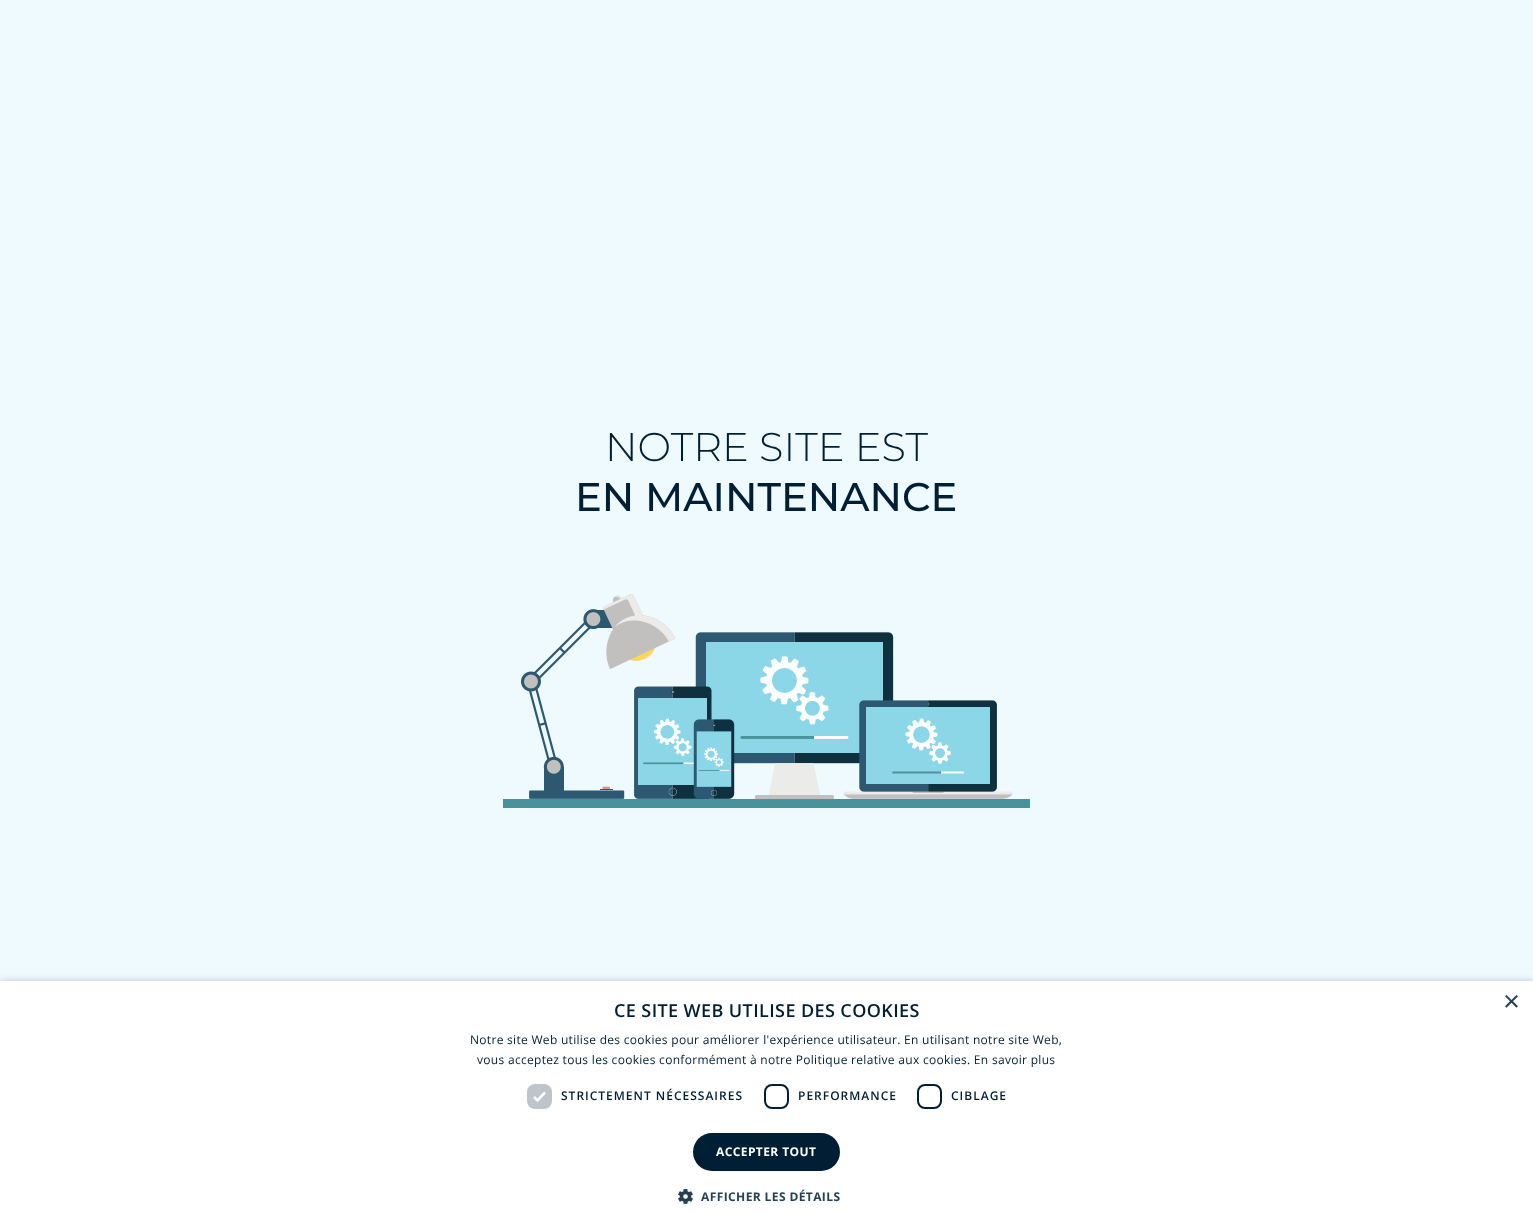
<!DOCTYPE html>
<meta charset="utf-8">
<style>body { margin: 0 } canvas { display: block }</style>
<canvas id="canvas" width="1533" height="1230"></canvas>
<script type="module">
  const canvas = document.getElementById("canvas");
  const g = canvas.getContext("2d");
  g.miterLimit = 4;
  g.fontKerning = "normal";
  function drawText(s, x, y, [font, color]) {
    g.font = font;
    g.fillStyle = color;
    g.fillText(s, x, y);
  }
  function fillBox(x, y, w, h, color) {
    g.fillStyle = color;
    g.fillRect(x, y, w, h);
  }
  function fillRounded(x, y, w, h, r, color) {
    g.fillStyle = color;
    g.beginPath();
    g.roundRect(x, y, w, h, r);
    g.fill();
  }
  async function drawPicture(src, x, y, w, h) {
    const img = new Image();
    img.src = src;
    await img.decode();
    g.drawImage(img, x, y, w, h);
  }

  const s1 = ["300 40px Montserrat", "#001F35"];
  const s2 = ["500 40px Montserrat", "#001F35"];
  const s3 = ["29px Liberation Sans", "#264153"];
  const s4 = ["600 18px Open Sans", "#001F35"];
  const s5 = ["12px Open Sans", "#001F35"];
  const s6 = ["600 12px Open Sans", "#001F35"];
  const s7 = ["bold 12px Open Sans", "#FFFFFF"];
  const s8 = ["bold 12px Open Sans", "#264153"];

  fillBox(0, 0, 1533, 1230, "#EFFAFF");
  drawText("NOTRE SITE EST", 605, 461, s1);
  drawText("EN MAINTENANCE", 575, 511, s2);
  await drawPicture("pic1.png", 503, 594, 527, 214);
  g.fillStyle = "rgba(0, 0, 0, 0.35)";
  g.filter = "blur(4px)";
  g.beginPath();
  g.rect(1, 983, 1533, 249);
  g.fill();
  g.filter = "none";
  fillBox(0, 981, 1533, 249, "#FFFFFF");
  drawText("×", 1503, 1011, s3);
  g.letterSpacing = "0.4px";
  drawText("CE SITE WEB UTILISE DES COOKIES", 614, 1017, s4);
  g.letterSpacing = "0.3px";
  drawText("Notre site Web utilise des cookies pour améliorer l'expérience utilisateur. En utilisant notre site Web,", 470, 1044, s5);
  drawText("vous acceptez tous les cookies conformément à notre Politique relative aux cookies. En savoir plus", 477, 1064, s5);
  fillRounded(527, 1084, 25, 25, 8, "#BDC5CA");
  g.beginPath();
  g.moveTo(534, 1097);
  g.lineTo(537.5, 1100.5);
  g.lineTo(545, 1092.5);
  g.strokeStyle = "#FFFFFF";
  g.lineWidth = 2.6;
  g.stroke();
  g.letterSpacing = "1px";
  drawText("STRICTEMENT NÉCESSAIRES", 561, 1100, s6);
  g.beginPath();
  g.roundRect(765, 1085, 23, 23, 7);
  g.strokeStyle = "#001F35";
  g.lineWidth = 2;
  g.stroke();
  drawText("PERFORMANCE", 798, 1100, s6);
  g.beginPath();
  g.roundRect(918, 1085, 23, 23, 7);
  g.stroke();
  drawText("CIBLAGE", 951, 1100, s6);
  fillRounded(693, 1133, 147, 38, 19, "#001F35");
  g.letterSpacing = "0.4px";
  drawText("ACCEPTER TOUT", 716, 1156, s7);
  await drawPicture("pic2.png", 678, 1189, 15, 15);
  drawText("AFFICHER LES DÉTAILS", 701, 1201, s8);
</script>
